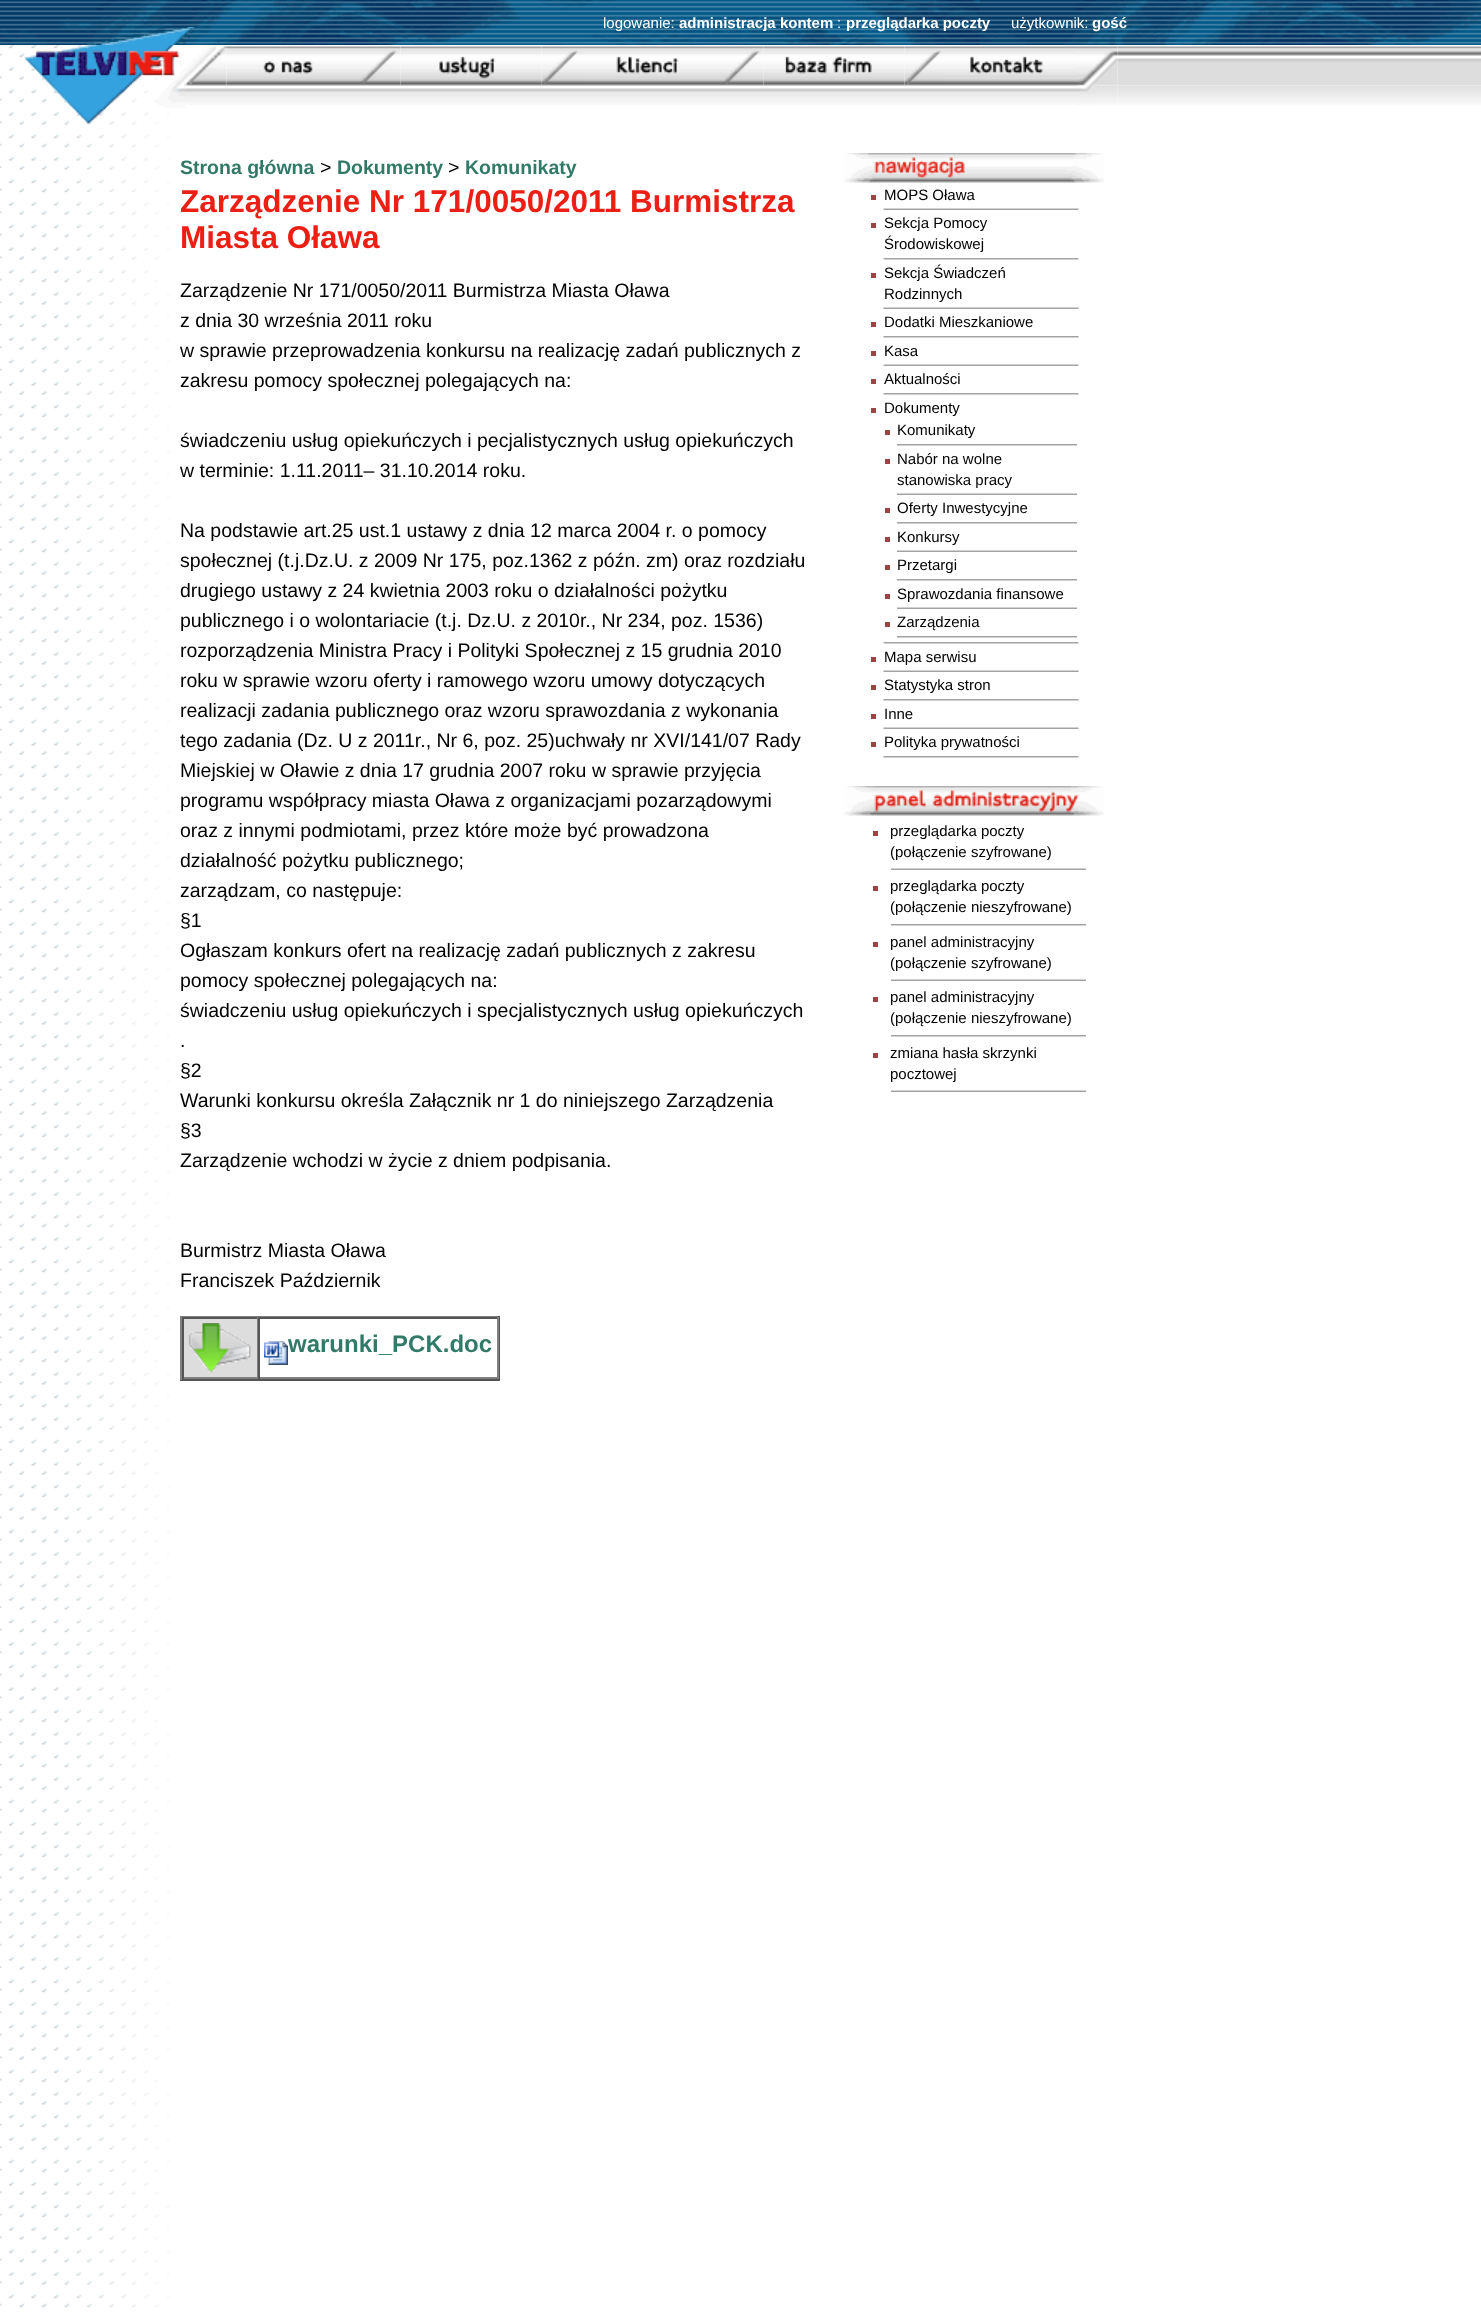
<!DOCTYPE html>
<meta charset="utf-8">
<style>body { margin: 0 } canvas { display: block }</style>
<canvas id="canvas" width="1481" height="2315"></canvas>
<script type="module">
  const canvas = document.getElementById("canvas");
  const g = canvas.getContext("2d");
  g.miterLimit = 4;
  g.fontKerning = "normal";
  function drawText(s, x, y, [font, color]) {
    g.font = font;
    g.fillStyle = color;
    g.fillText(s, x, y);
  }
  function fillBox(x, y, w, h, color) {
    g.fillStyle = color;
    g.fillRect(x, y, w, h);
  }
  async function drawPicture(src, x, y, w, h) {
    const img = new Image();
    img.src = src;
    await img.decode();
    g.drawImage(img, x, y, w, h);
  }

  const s1 = ["15px Liberation Sans", "#FFFFFF"];
  const s2 = ["bold 15px Liberation Sans", "#FFFFFF"];
  const s3 = ["bold 19.5px Liberation Sans", "#327A68"];
  const s4 = ["19.5px Liberation Sans", "#000000"];
  const s5 = ["bold 31.5px Liberation Sans", "#EB1F13"];
  const s6 = ["bold 24px Liberation Sans", "#327A68"];
  const s7 = ["15px Liberation Sans", "#000000"];

  fillBox(0, 0, 1481, 2315, "#FFFFFF");
  await drawPicture("pic1.png", 0, 45, 170, 2263);
  await drawPicture("pic2.png", 0, 0, 1481, 45);
  drawText("logowanie:", 603, 28, s1);
  drawText("administracja kontem", 679, 28, s2);
  drawText(":", 837, 28, s1);
  drawText("przeglądarka poczty", 846, 28, s2);
  drawText("użytkownik:", 1011, 28, s1);
  drawText("gość", 1092, 28, s2);
  await drawPicture("pic3.png", 86, 27, 109, 18);
  await drawPicture("pic4.png", 23, 45, 163, 79);
  await drawPicture("pic5.png", 186, 46, 41, 40);
  await drawPicture("pic6.png", 226, 46, 134, 40);
  await drawPicture("pic7.png", 360, 46, 41, 40);
  await drawPicture("pic8.png", 400, 46, 142, 40);
  await drawPicture("pic9.png", 541, 46, 41, 40);
  await drawPicture("pic10.png", 582, 46, 141, 40);
  await drawPicture("pic7.png", 723, 46, 41, 40);
  await drawPicture("pic11.png", 763, 46, 142, 40);
  await drawPicture("pic12.png", 904, 46, 41, 40);
  await drawPicture("pic13.png", 945, 46, 132, 40);
  await drawPicture("pic15.png", 1117, 46, 364, 40);
  await drawPicture("pic17.png", 1077, 85, 41, 20);
  await drawPicture("pic19.png", 1117, 85, 364, 20);
  await drawPicture("pic14.png", 1077, 46, 41, 40);
  await drawPicture("pic16.png", 186, 88, 891, 17);
  await drawPicture("pic18.png", 1077, 85, 18, 21);
  drawText("Strona główna", 180, 174, s3);
  drawText(">", 320, 174, s4);
  drawText("Dokumenty", 337, 174, s3);
  drawText(">", 448, 174, s4);
  drawText("Komunikaty", 465, 174, s3);
  drawText("Zarządzenie Nr 171/0050/2011 Burmistrza", 180, 212, s5);
  drawText("Miasta Oława", 180, 248, s5);
  drawText("Zarządzenie Nr 171/0050/2011 Burmistrza Miasta Oława", 180, 297, s4);
  drawText("z dnia 30 września 2011 roku", 180, 327, s4);
  drawText("w sprawie przeprowadzenia konkursu na realizację zadań publicznych z", 180, 357, s4);
  drawText("zakresu pomocy społecznej polegających na:", 180, 387, s4);
  drawText("świadczeniu usług opiekuńczych i pecjalistycznych usług opiekuńczych", 180, 447, s4);
  drawText("w terminie: 1.11.2011– 31.10.2014 roku.", 180, 477, s4);
  drawText("Na podstawie art.25 ust.1 ustawy z dnia 12 marca 2004 r. o pomocy", 180, 537, s4);
  drawText("społecznej (t.j.Dz.U. z 2009 Nr 175, poz.1362 z późn. zm) oraz rozdziału", 180, 567, s4);
  drawText("drugiego ustawy z 24 kwietnia 2003 roku o działalności pożytku", 180, 597, s4);
  drawText("publicznego i o wolontariacie (t.j. Dz.U. z 2010r., Nr 234, poz. 1536)", 180, 627, s4);
  drawText("rozporządzenia Ministra Pracy i Polityki Społecznej z 15 grudnia 2010", 180, 657, s4);
  drawText("roku w sprawie wzoru oferty i ramowego wzoru umowy dotyczących", 180, 687, s4);
  drawText("realizacji zadania publicznego oraz wzoru sprawozdania z wykonania", 180, 717, s4);
  drawText("tego zadania (Dz. U z 2011r., Nr 6, poz. 25)uchwały nr XVI/141/07 Rady", 180, 747, s4);
  drawText("Miejskiej w Oławie z dnia 17 grudnia 2007 roku w sprawie przyjęcia", 180, 777, s4);
  drawText("programu współpracy miasta Oława z organizacjami pozarządowymi", 180, 807, s4);
  drawText("oraz z innymi podmiotami, przez które może być prowadzona", 180, 837, s4);
  drawText("działalność pożytku publicznego;", 180, 867, s4);
  drawText("zarządzam, co następuje:", 180, 897, s4);
  drawText("§1", 180, 927, s4);
  drawText("Ogłaszam konkurs ofert na realizację zadań publicznych z zakresu", 180, 957, s4);
  drawText("pomocy społecznej polegających na:", 180, 987, s4);
  drawText("świadczeniu usług opiekuńczych i specjalistycznych usług opiekuńczych", 180, 1017, s4);
  drawText(".", 180, 1047, s4);
  drawText("§2", 180, 1077, s4);
  drawText("Warunki konkursu określa Załącznik nr 1 do niniejszego Zarządzenia", 180, 1107, s4);
  drawText("§3", 180, 1137, s4);
  drawText("Zarządzenie wchodzi w życie z dniem podpisania.", 180, 1167, s4);
  drawText("Burmistrz Miasta Oława", 180, 1257, s4);
  drawText("Franciszek Październik", 180, 1287, s4);
  fillBox(180, 1316, 320, 1, "#808080");
  fillBox(498, 1316, 2, 64, "#555555");
  fillBox(180, 1379, 320, 2, "#555555");
  fillBox(180, 1316, 2, 64, "#808080");
  fillBox(184, 1319, 73, 58, "#DDDDDD");
  fillBox(182, 1317, 316, 2, "#555555");
  fillBox(257, 1317, 1, 62, "#808080");
  fillBox(182, 1377, 76, 2, "#808080");
  fillBox(182, 1317, 2, 62, "#555555");
  await drawPicture("pic20.png", 188, 1323, 63, 50);
  fillBox(497, 1317, 2, 62, "#808080");
  fillBox(258, 1377, 240, 2, "#808080");
  fillBox(258, 1317, 2, 62, "#555555");
  await drawPicture("pic21.png", 264, 1341, 24, 24);
  drawText("warunki_PCK.doc", 288, 1352, s6);
  await drawPicture("pic22.png", 844, 153, 260, 30);
  fillBox(871, 195, 5, 5, "#9A4443");
  drawText("MOPS Oława", 884, 200, s7);
  await drawPicture("pic23.png", 883, 208, 196, 2);
  fillBox(871, 223, 5, 5, "#9A4443");
  drawText("Sekcja Pomocy", 884, 228, s7);
  drawText("Środowiskowej", 884, 249, s7);
  await drawPicture("pic24.png", 883, 258, 196, 2);
  fillBox(871, 273, 5, 5, "#9A4443");
  drawText("Sekcja Świadczeń", 884, 278, s7);
  drawText("Rodzinnych", 884, 299, s7);
  await drawPicture("pic23.png", 883, 307, 196, 2);
  fillBox(871, 322, 5, 5, "#9A4443");
  drawText("Dodatki Mieszkaniowe", 884, 327, s7);
  await drawPicture("pic24.png", 883, 336, 196, 2);
  fillBox(871, 351, 5, 5, "#9A4443");
  drawText("Kasa", 884, 356, s7);
  await drawPicture("pic23.png", 883, 364, 196, 2);
  fillBox(871, 379, 5, 5, "#9A4443");
  drawText("Aktualności", 884, 384, s7);
  await drawPicture("pic24.png", 883, 393, 196, 2);
  fillBox(871, 408, 5, 5, "#9A4443");
  drawText("Dokumenty", 884, 413, s7);
  fillBox(885, 430, 5, 5, "#9A4443");
  drawText("Komunikaty", 897, 435, s7);
  await drawPicture("pic25.png", 897, 444, 180, 2);
  fillBox(885, 459, 5, 5, "#9A4443");
  drawText("Nabór na wolne", 897, 464, s7);
  drawText("stanowiska pracy", 897, 485, s7);
  await drawPicture("pic26.png", 897, 493, 180, 2);
  fillBox(885, 508, 5, 5, "#9A4443");
  drawText("Oferty Inwestycyjne", 897, 513, s7);
  await drawPicture("pic25.png", 897, 522, 180, 2);
  fillBox(885, 537, 5, 5, "#9A4443");
  drawText("Konkursy", 897, 542, s7);
  await drawPicture("pic26.png", 897, 550, 180, 2);
  fillBox(885, 565, 5, 5, "#9A4443");
  drawText("Przetargi", 897, 570, s7);
  await drawPicture("pic25.png", 897, 579, 180, 2);
  fillBox(885, 594, 5, 5, "#9A4443");
  drawText("Sprawozdania finansowe", 897, 599, s7);
  await drawPicture("pic26.png", 897, 607, 180, 2);
  fillBox(885, 622, 5, 5, "#9A4443");
  drawText("Zarządzenia", 897, 627, s7);
  await drawPicture("pic25.png", 897, 636, 180, 2);
  await drawPicture("pic24.png", 883, 642, 196, 2);
  fillBox(871, 657, 5, 5, "#9A4443");
  drawText("Mapa serwisu", 884, 662, s7);
  await drawPicture("pic23.png", 883, 670, 196, 2);
  fillBox(871, 685, 5, 5, "#9A4443");
  drawText("Statystyka stron", 884, 690, s7);
  await drawPicture("pic24.png", 883, 699, 196, 2);
  fillBox(871, 714, 5, 5, "#9A4443");
  drawText("Inne", 884, 719, s7);
  await drawPicture("pic23.png", 883, 727, 196, 2);
  fillBox(871, 742, 5, 5, "#9A4443");
  drawText("Polityka prywatności", 884, 747, s7);
  await drawPicture("pic24.png", 883, 756, 196, 2);
  await drawPicture("pic27.png", 844, 786, 260, 30);
  fillBox(873, 831, 5, 5, "#9A4443");
  drawText("przeglądarka poczty", 890, 836, s7);
  drawText("(połączenie szyfrowane)", 890, 857, s7);
  await drawPicture("pic28.png", 891, 868, 195, 2);
  fillBox(873, 886, 5, 5, "#9A4443");
  drawText("przeglądarka poczty", 890, 891, s7);
  drawText("(połączenie nieszyfrowane)", 890, 912, s7);
  await drawPicture("pic29.png", 891, 924, 195, 2);
  fillBox(873, 942, 5, 5, "#9A4443");
  drawText("panel administracyjny", 890, 947, s7);
  drawText("(połączenie szyfrowane)", 890, 968, s7);
  await drawPicture("pic28.png", 891, 979, 195, 2);
  fillBox(873, 997, 5, 5, "#9A4443");
  drawText("panel administracyjny", 890, 1002, s7);
  drawText("(połączenie nieszyfrowane)", 890, 1023, s7);
  await drawPicture("pic29.png", 891, 1035, 195, 2);
  fillBox(873, 1053, 5, 5, "#9A4443");
  drawText("zmiana hasła skrzynki", 890, 1058, s7);
  drawText("pocztowej", 890, 1079, s7);
  await drawPicture("pic28.png", 891, 1090, 195, 2);
</script>
